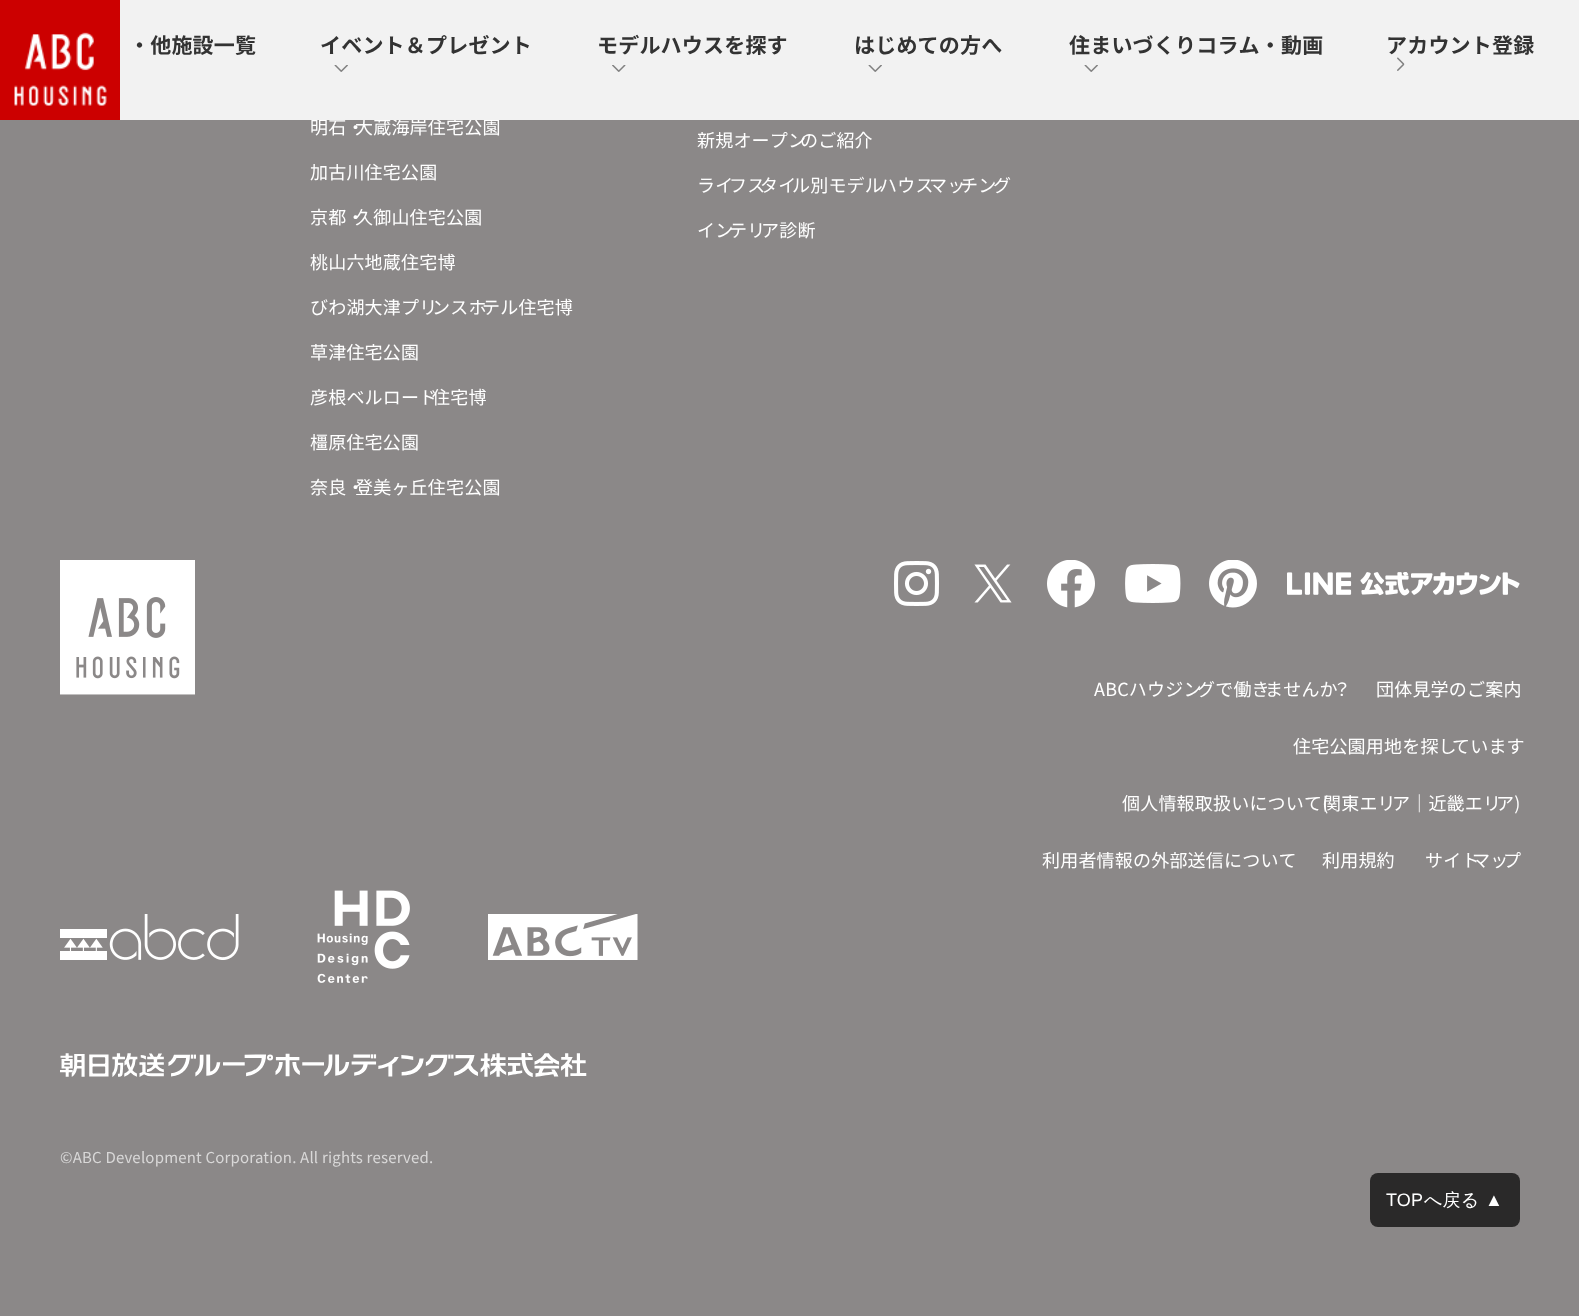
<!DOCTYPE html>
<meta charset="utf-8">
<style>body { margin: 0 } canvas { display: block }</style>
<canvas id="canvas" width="1579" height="1316"></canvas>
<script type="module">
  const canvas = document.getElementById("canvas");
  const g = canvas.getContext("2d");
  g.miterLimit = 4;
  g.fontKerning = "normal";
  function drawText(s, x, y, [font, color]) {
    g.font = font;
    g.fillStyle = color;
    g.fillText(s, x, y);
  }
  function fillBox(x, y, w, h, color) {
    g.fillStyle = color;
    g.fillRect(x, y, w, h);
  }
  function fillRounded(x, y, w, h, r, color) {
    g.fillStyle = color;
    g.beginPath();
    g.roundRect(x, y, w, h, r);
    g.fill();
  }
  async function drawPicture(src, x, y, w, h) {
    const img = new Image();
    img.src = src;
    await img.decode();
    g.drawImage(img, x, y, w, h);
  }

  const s1 = ["18px Noto Sans JP", "#FFFFFF"];
  const s2 = ["bold 21px Noto Sans JP", "#333333"];
  const s3 = ["15px Noto Sans JP", "#D9D8D8"];
  const s4 = ["18px Liberation Sans", "#FFFFFF"];
  const s5 = ["500 18px WenQuanYi Zen Hei", "#FFFFFF"];

  fillBox(0, 0, 1579, 1316, "#8B8888");
  g.letterSpacing = "0.2px";
  drawText("明石・", 310, 134, s1);
  drawText("大蔵海岸住宅公園", 355, 134, s1);
  fillBox(120, 0, 1459, 120, "#F2F2F2");
  await drawPicture("pic1.png", 0, 0, 120, 120);
  drawText("・他施設一覧", 129, 53, s2);
  drawText("イベント＆プレゼント", 320, 53, s2);
  await drawPicture("pic2.png", 334, 65, 14, 7);
  drawText("モデルハウスを探す", 597, 53, s2);
  await drawPicture("pic3.png", 612, 65, 14, 7);
  drawText("はじめての方へ", 854, 53, s2);
  await drawPicture("pic2.png", 868, 65, 14, 7);
  drawText("住まいづくりコラム・動画", 1069, 53, s2);
  await drawPicture("pic2.png", 1084, 65, 14, 7);
  drawText("アカウント登録", 1386, 53, s2);
  await drawPicture("pic4.png", 1397, 57, 8, 14);
  drawText("加古川住宅公園", 310, 179, s1);
  drawText("京都・", 310, 224, s1);
  drawText("久御山住宅公園", 355, 224, s1);
  drawText("桃山六地蔵住宅博", 310, 269, s1);
  drawText("びわ湖大津プリ", 310, 314, s1);
  drawText("ンスホ", 432, 314, s1);
  drawText("テル住宅博", 482, 314, s1);
  drawText("草津住宅公園", 310, 359, s1);
  drawText("彦根ベルロード", 310, 404, s1);
  drawText("住宅博", 432, 404, s1);
  drawText("橿原住宅公園", 310, 449, s1);
  drawText("奈良・", 310, 494, s1);
  drawText("登美ヶ丘住宅公園", 355, 494, s1);
  drawText("新規オープン", 697, 147, s1);
  drawText("のご紹介", 800, 147, s1);
  drawText("ライ", 697, 192, s1);
  drawText("フス", 729, 192, s1);
  drawText("タイ", 760, 192, s1);
  drawText("ル別モデル", 792, 192, s1);
  drawText("ハウス", 879, 192, s1);
  drawText("マッ", 929, 192, s1);
  drawText("チン", 960, 192, s1);
  drawText("グ", 993, 192, s1);
  drawText("イン", 697, 237, s1);
  drawText("テリ", 729, 237, s1);
  drawText("ア診断", 761, 237, s1);
  await drawPicture("pic5.png", 60, 560, 135, 135);
  await drawPicture("pic6.png", 894, 561, 45, 45);
  await drawPicture("pic7.png", 974, 564, 38, 39);
  await drawPicture("pic8.png", 1047, 560, 48, 48);
  await drawPicture("pic9.png", 1125, 564, 56, 39);
  await drawPicture("pic10.png", 1209, 560, 48, 48);
  await drawPicture("pic11.png", 1287, 572, 233, 24);
  drawText("ABCハウジン", 1094, 696, s1);
  drawText("グで働き", 1197, 696, s1);
  drawText("ませんか", 1265, 696, s1);
  drawText("？", 1333, 696, s1);
  drawText("団体見学のご案内", 1376, 696, s1);
  drawText("住宅公園用地を探し", 1293, 753, s1);
  drawText("ています", 1452, 753, s1);
  drawText("個人情報取扱いについて(", 1122, 810, s1);
  drawText("関東エリ", 1323, 810, s1);
  drawText("ア｜近畿エリ", 1392, 810, s1);
  drawText("ア)", 1496, 810, s1);
  drawText("利用者情報の外部送信について", 1042, 867, s1);
  drawText("利用規約", 1322, 867, s1);
  drawText("サイト", 1425, 867, s1);
  drawText("マッ", 1472, 867, s1);
  drawText("プ", 1503, 867, s1);
  await drawPicture("pic12.png", 60, 914, 179, 46);
  await drawPicture("pic13.png", 317, 890, 93, 93);
  await drawPicture("pic14.png", 488, 914, 150, 46);
  await drawPicture("pic15.png", 60, 1053, 527, 24);
  drawText("©ABC Development Corporation. All rights reserved.", 60, 1163, s3);
  fillRounded(1370, 1173, 150, 54, 8, "#2A2929");
  drawText("TOP", 1386, 1206, s4);
  drawText("へ戻る", 1424, 1206, s5);
  drawText("▲", 1485, 1206, s4);
</script>
